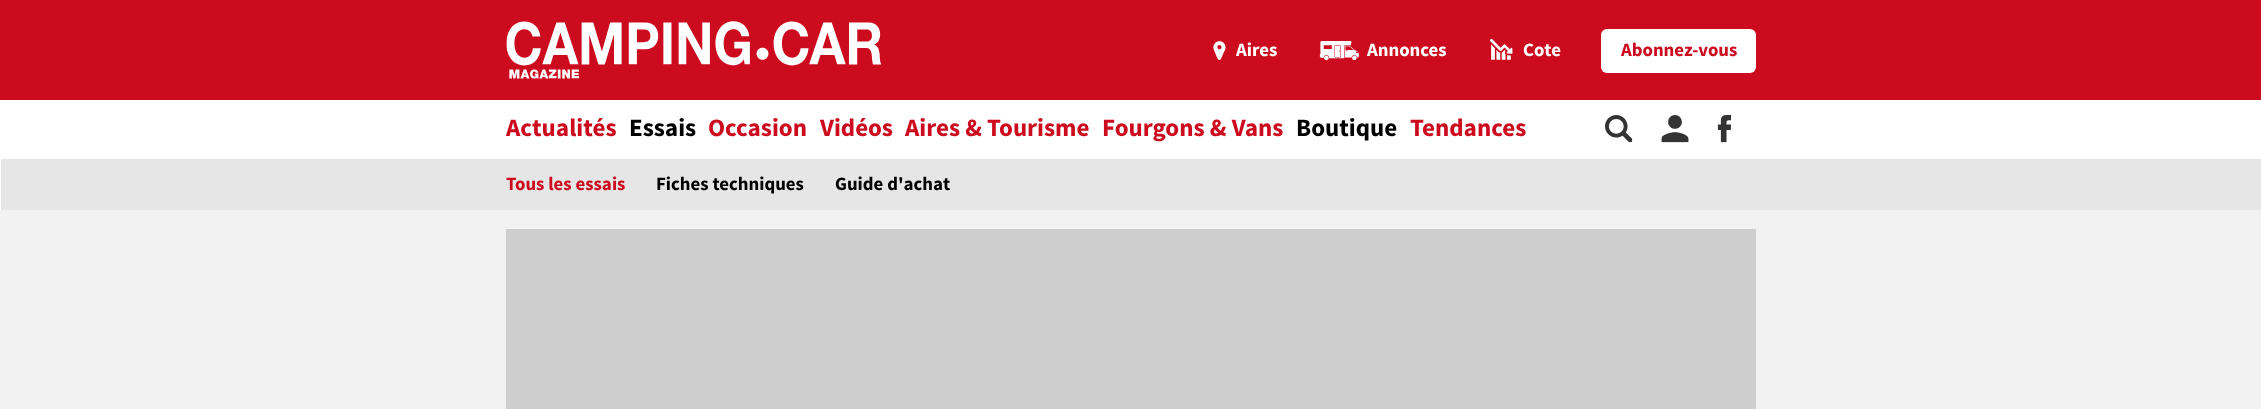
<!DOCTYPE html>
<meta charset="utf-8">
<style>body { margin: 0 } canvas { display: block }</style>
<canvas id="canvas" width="2261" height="409"></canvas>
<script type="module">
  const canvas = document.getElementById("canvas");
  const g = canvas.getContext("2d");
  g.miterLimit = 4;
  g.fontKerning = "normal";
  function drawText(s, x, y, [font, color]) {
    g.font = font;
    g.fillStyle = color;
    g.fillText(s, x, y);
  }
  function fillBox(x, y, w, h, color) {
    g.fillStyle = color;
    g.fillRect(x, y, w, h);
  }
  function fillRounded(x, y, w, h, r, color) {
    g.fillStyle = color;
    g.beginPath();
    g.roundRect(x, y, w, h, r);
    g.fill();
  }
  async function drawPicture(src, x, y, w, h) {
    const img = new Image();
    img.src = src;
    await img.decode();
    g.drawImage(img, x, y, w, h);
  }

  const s1 = ["bold 18.75px Source Sans Pro", "#FFFFFF"];
  const s2 = ["bold 18.75px Source Sans Pro", "#CC0B1E"];
  const s3 = ["bold 25px Source Sans Pro", "#CC0B1E"];
  const s4 = ["bold 25px Source Sans Pro", "#000000"];
  const s5 = ["bold 18.75px Source Sans Pro", "#000000"];

  fillBox(0, 0, 2261, 409, "#F2F2F2");
  fillBox(0, 0, 2261, 100, "#CC0B1E");
  await drawPicture("pic1.png", 506, 21, 375, 58);
  await drawPicture("pic2.png", 1213, 41, 13, 19);
  drawText("Aires", 1236, 56, s1);
  await drawPicture("pic3.png", 1319, 41, 40, 20);
  drawText("Annonces", 1367, 56, s1);
  await drawPicture("pic4.png", 1490, 39, 23, 21);
  drawText("Cote", 1523, 56, s1);
  fillRounded(1601, 29, 155, 44, 6, "#FFFFFF");
  drawText("Abonnez-vous", 1621, 56, s2);
  fillBox(0, 100, 2261, 110, "#FFFFFF");
  drawText("Actualités", 506, 136, s3);
  drawText("Essais", 629, 136, s4);
  fillBox(1, 159, 2260, 51, "#E6E6E6");
  drawText("Tous les essais", 506, 190, s2);
  drawText("Fiches techniques", 656, 190, s5);
  drawText("Guide d'achat", 835, 190, s5);
  drawText("Occasion", 708, 136, s3);
  drawText("Vidéos", 820, 136, s3);
  drawText("Aires & Tourisme", 905, 136, s3);
  drawText("Fourgons & Vans", 1102, 136, s3);
  drawText("Boutique", 1296, 136, s4);
  drawText("Tendances", 1410, 136, s3);
  await drawPicture("pic5.png", 1605, 115, 28, 28);
  await drawPicture("pic6.png", 1661, 115, 28, 28);
  await drawPicture("pic7.png", 1717, 115, 14, 28);
  fillBox(506, 229, 1250, 180, "#CECECE");
</script>
